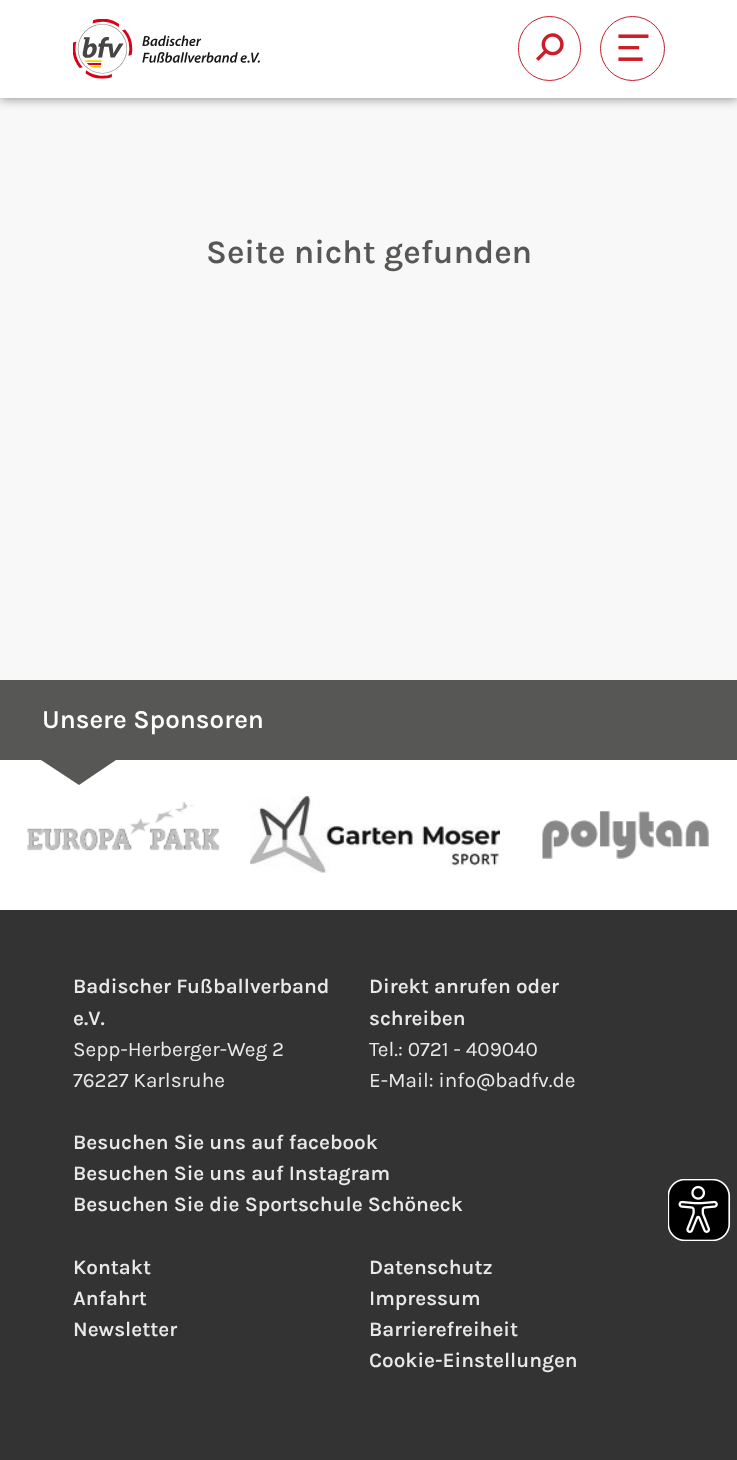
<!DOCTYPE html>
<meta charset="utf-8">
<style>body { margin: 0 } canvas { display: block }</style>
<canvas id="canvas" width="737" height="1460"></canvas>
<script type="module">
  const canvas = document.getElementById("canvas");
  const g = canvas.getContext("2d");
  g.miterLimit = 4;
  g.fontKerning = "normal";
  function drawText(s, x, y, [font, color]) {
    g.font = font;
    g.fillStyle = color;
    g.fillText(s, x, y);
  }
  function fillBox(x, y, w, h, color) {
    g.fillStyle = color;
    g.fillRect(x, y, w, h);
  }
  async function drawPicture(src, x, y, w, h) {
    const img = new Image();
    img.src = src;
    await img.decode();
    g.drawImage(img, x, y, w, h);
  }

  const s1 = ["600 33.25px Karla", "#575756"];
  const s2 = ["600 26px Karla", "#FFFFFF"];
  const s3 = ["600 20.75px Karla", "#E9E9E9"];
  const s4 = ["20.75px Karla", "#E9E9E9"];

  fillBox(0, 0, 737, 1460, "#F8F8F8");
  fillBox(0, 0, 737, 98, "#FFFFFF");
  g.save();
  g.beginPath();
  g.moveTo(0, 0);
  g.lineTo(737, 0);
  g.lineTo(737, 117);
  g.lineTo(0, 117);
  g.closePath();
  g.moveTo(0, 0);
  g.lineTo(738, 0);
  g.lineTo(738, 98);
  g.lineTo(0, 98);
  g.closePath();
  g.clip("evenodd");
  g.fillStyle = "rgba(0, 0, 0, 0.5)";
  g.filter = "blur(6px)";
  g.beginPath();
  g.rect(0, 0, 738, 98);
  g.fill();
  g.filter = "none";
  g.restore();
  await drawPicture("pic1.png", 73, 19, 187, 60);
  g.beginPath();
  g.roundRect(518.5, 16.5, 62, 64, 31);
  g.strokeStyle = "#CB1C2A";
  g.stroke();
  await drawPicture("pic2.png", 536, 33, 28, 28);
  g.beginPath();
  g.arc(632.5, 48.5, 32, 0, Math.PI * 2);
  g.stroke();
  await drawPicture("pic3.png", 618, 34, 31, 27);
  drawText("Seite nicht gefunden", 206, 263, s1);
  fillBox(0, 760, 737, 150, "#FFFFFF");
  fillBox(0, 680, 737, 80, "#575756");
  drawText("Unsere Sponsoren", 42, 728, s2);
  g.fillStyle = "#575756";
  g.beginPath();
  g.moveTo(41, 760);
  g.lineTo(116, 760);
  g.lineTo(79, 785);
  g.closePath();
  g.fill();
  await drawPicture("pic4.png", 27, 801, 193, 50);
  await drawPicture("pic5.png", 250, 796, 250, 77);
  await drawPicture("pic6.png", 542, 811, 167, 48);
  fillBox(0, 910, 737, 550, "#333333");
  drawText("Badischer Fußballverband", 73, 993, s3);
  drawText("e.V.", 73, 1025, s3);
  drawText("Sepp-Herberger-Weg 2", 73, 1056, s4);
  drawText("76227 Karlsruhe", 73, 1087, s4);
  drawText("Direkt anrufen oder", 369, 993, s3);
  drawText("schreiben", 369, 1025, s3);
  drawText("Tel.: 0721 - 409040", 369, 1056, s4);
  drawText("E-Mail: info@badfv.de", 369, 1087, s4);
  drawText("Besuchen Sie uns auf facebook", 73, 1149, s3);
  drawText("Besuchen Sie uns auf Instagram", 73, 1180, s3);
  drawText("Besuchen Sie die Sportschule Schöneck", 73, 1211, s3);
  drawText("Kontakt", 73, 1274, s3);
  drawText("Anfahrt", 73, 1305, s3);
  drawText("Newsletter", 73, 1336, s3);
  drawText("Datenschutz", 369, 1274, s3);
  drawText("Impressum", 369, 1305, s3);
  drawText("Barrierefreiheit", 369, 1336, s3);
  drawText("Cookie-Einstellungen", 369, 1367, s3);
  await drawPicture("pic7.png", 668, 1179, 63, 62);
</script>
